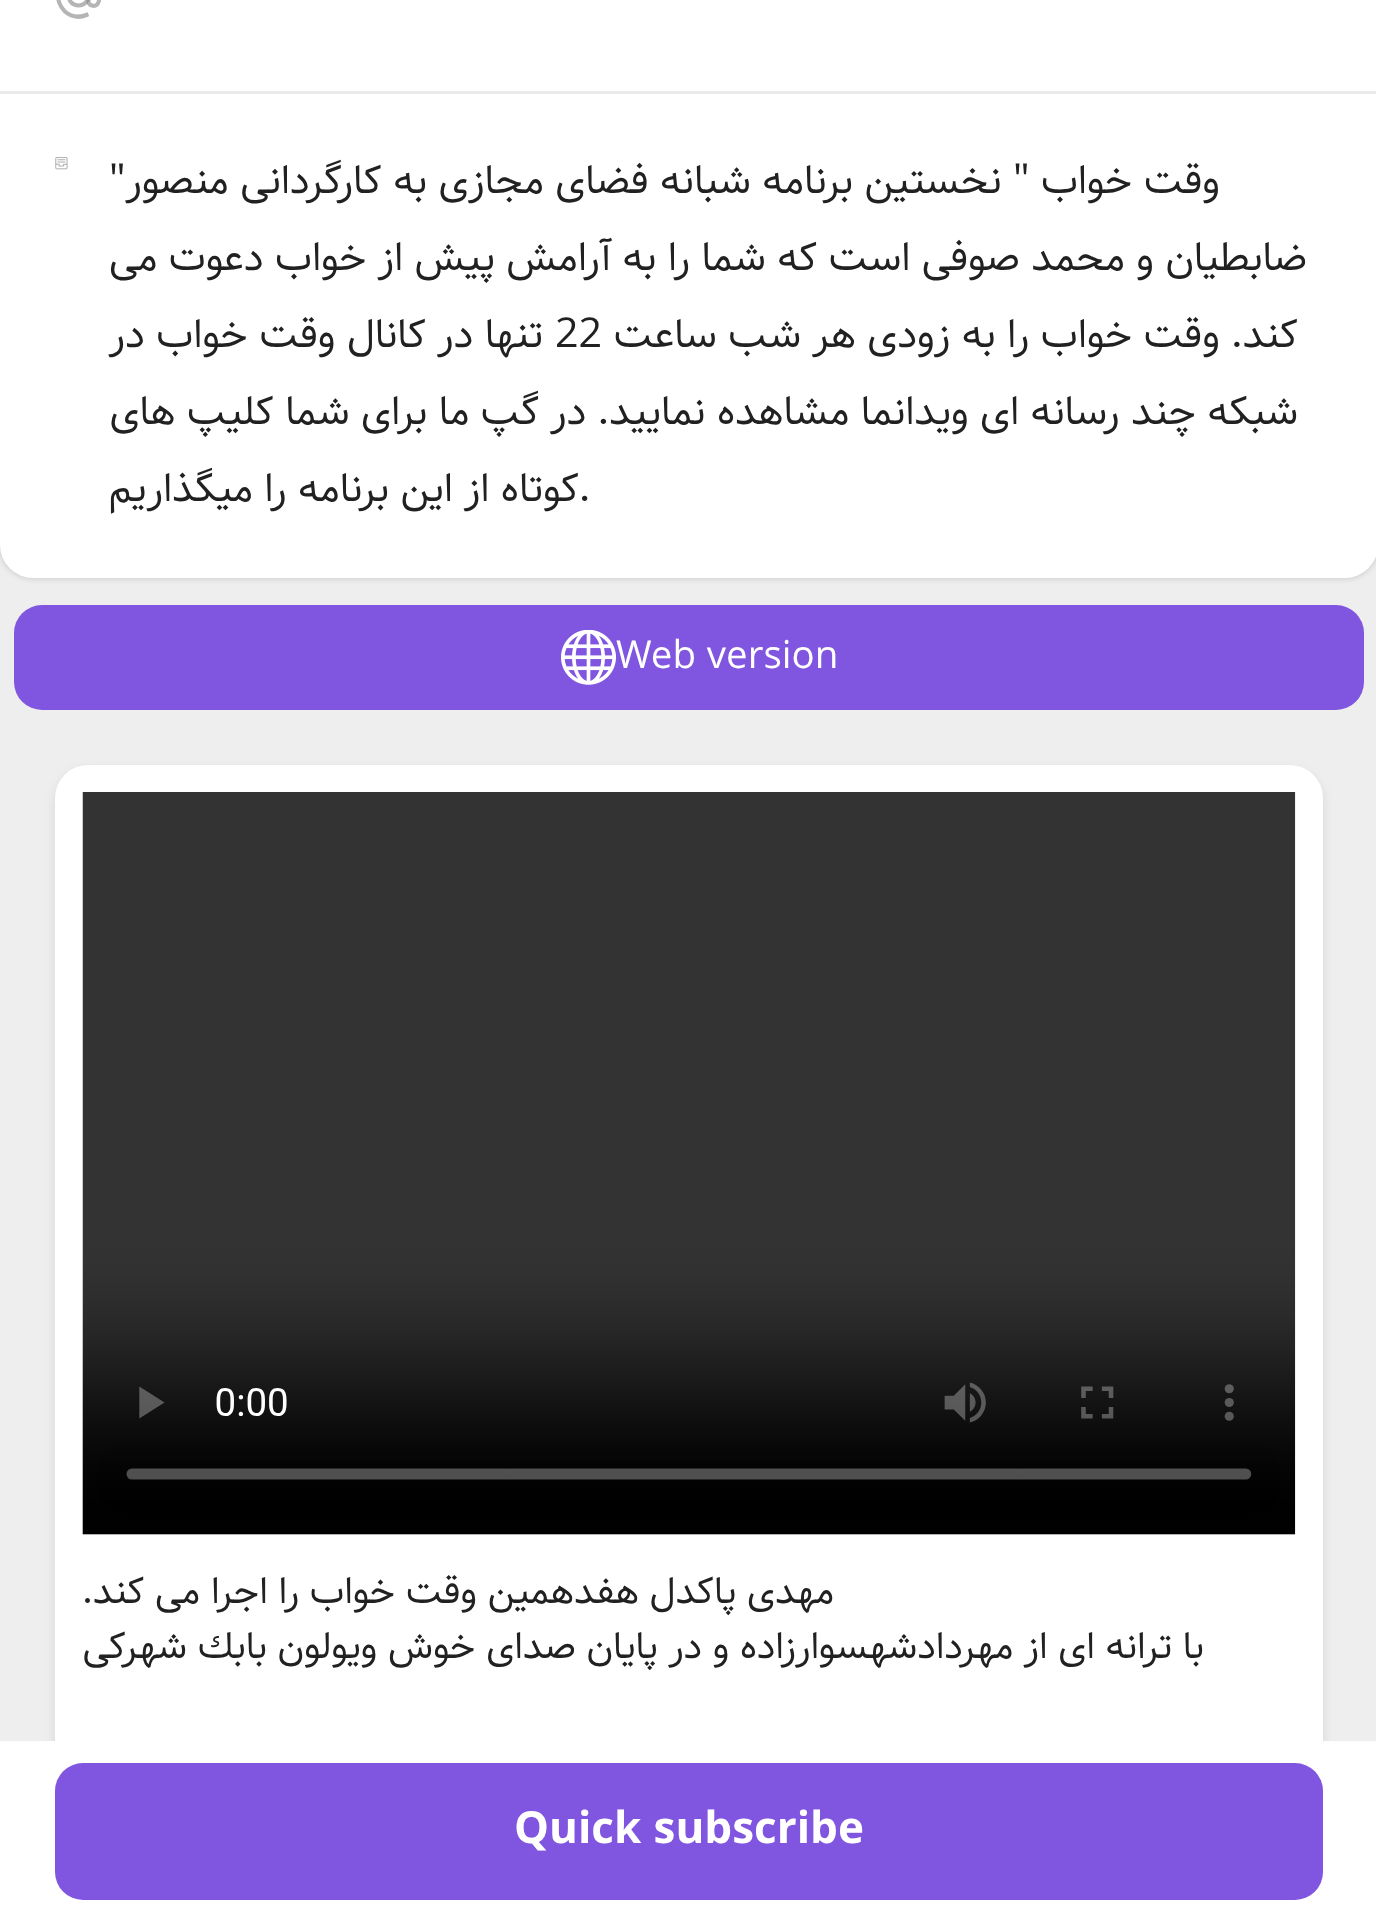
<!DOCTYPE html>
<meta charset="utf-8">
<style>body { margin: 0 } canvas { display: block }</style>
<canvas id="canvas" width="1376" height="1920"></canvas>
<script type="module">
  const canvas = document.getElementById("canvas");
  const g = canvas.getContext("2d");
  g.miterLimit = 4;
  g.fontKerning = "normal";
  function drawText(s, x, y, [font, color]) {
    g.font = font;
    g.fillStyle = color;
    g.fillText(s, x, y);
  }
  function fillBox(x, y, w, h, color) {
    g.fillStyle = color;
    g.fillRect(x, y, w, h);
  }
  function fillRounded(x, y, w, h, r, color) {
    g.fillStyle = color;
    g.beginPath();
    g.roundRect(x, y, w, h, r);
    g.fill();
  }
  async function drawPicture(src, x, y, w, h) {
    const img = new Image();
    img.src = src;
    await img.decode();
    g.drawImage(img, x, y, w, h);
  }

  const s1 = ["41.25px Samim", "#212121"];
  const s2 = ["38.5px Samim", "#FFFFFF"];
  const s3 = ["bold 44px Samim", "#FFFFFF"];
  const s4 = ["38.5px Samim", "#212121"];

  fillBox(0, 0, 1376, 1920, "#EEEEEE");
  g.fillStyle = "rgba(0, 0, 0, 0.18)";
  g.filter = "blur(3px)";
  g.beginPath();
  g.roundRect(0, -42, 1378, 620, 33);
  g.fill();
  g.filter = "none";
  fillRounded(0, -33, 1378, 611, 33, "#FFFFFF");
  fillBox(0, 91, 1376, 3, "#EBEBEB");
  g.beginPath();
  g.moveTo(78.5, 5.5);
  g.bezierCurveTo(91.5, 5.5, 91.5, -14, 78.5, -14);
  g.bezierCurveTo(65.5, -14, 65.5, 5.5, 78.5, 5.5);
  g.closePath();
  g.strokeStyle = "#B5B5B6";
  g.lineWidth = 4.1;
  g.lineCap = "square";
  g.stroke();
  g.beginPath();
  g.moveTo(86.5, 15);
  g.bezierCurveTo(63, 25, 46, -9.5, 68.5, -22);
  g.bezierCurveTo(73, -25, 79, -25.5, 84.5, -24);
  g.bezierCurveTo(101.5, -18.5, 103.5, 9, 92, 5.5);
  g.bezierCurveTo(90, 5, 88.5, 3.5, 88.5, 1.5);
  g.lineTo(88, -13);
  g.strokeStyle = "rgba(132, 131, 133, 0.6)";
  g.stroke();
  g.direction = "rtl";
  drawText("وقت خواب \" نخستین برنامه شبانه فضای مجازی به کارگردانی منصور", 1220, 193, s1);
  g.direction = "ltr";
  drawText("\"", 109, 193, s1);
  g.direction = "rtl";
  drawText("ضابطیان و محمد صوفى است که شما را به آرامش پیش از خواب دعوت می", 1307, 270, s1);
  drawText("کند. وقت خواب را به زودی هر شب ساعت", 1298, 347, s1);
  g.direction = "ltr";
  drawText("22", 555, 347, s1);
  g.direction = "rtl";
  drawText("تنها در کانال وقت خواب در", 543, 347, s1);
  drawText("شبکه چند رسانه ای ویدانما مشاهده نمایید. در گپ ما برای شما کلیپ های", 1298, 424, s1);
  g.direction = "ltr";
  drawText(".", 579, 501, s1);
  g.direction = "rtl";
  drawText("کوتاه از این برنامه را میگذاریم", 579, 501, s1);
  await drawPicture("pic1.png", 55, 157, 13, 13);
  fillRounded(14, 605, 1350, 105, 28, "#8056E0");
  g.direction = "ltr";
  drawText("Web version", 616, 668, s2);
  await drawPicture("pic2.png", 561, 630, 55, 55);
  g.fillStyle = "rgba(96, 97, 112, 0.16)";
  g.filter = "blur(5.5px)";
  g.beginPath();
  g.roundRect(55, 770, 1268, 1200, 33);
  g.fill();
  g.filter = "none";
  fillRounded(55, 765, 1268, 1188, 33, "#FFFFFF");
  fillBox(0, 1741, 1376, 179, "#FFFFFF");
  fillRounded(55, 1763, 1268, 137, 28, "#8056E0");
  drawText("Quick subscribe", 514, 1843, s3);
  await drawPicture("pic3.png", 82, 792, 1214, 743);
  g.direction = "rtl";
  drawText("مهدى پاكدل هفدهمين وقت خواب را اجرا مى كند.", 834, 1603, s4);
  drawText("با ترانه اى از مهردادشهسوارزاده و در پايان صداى خوش ويولون بابك شهركى", 1204, 1658, s4);
</script>
